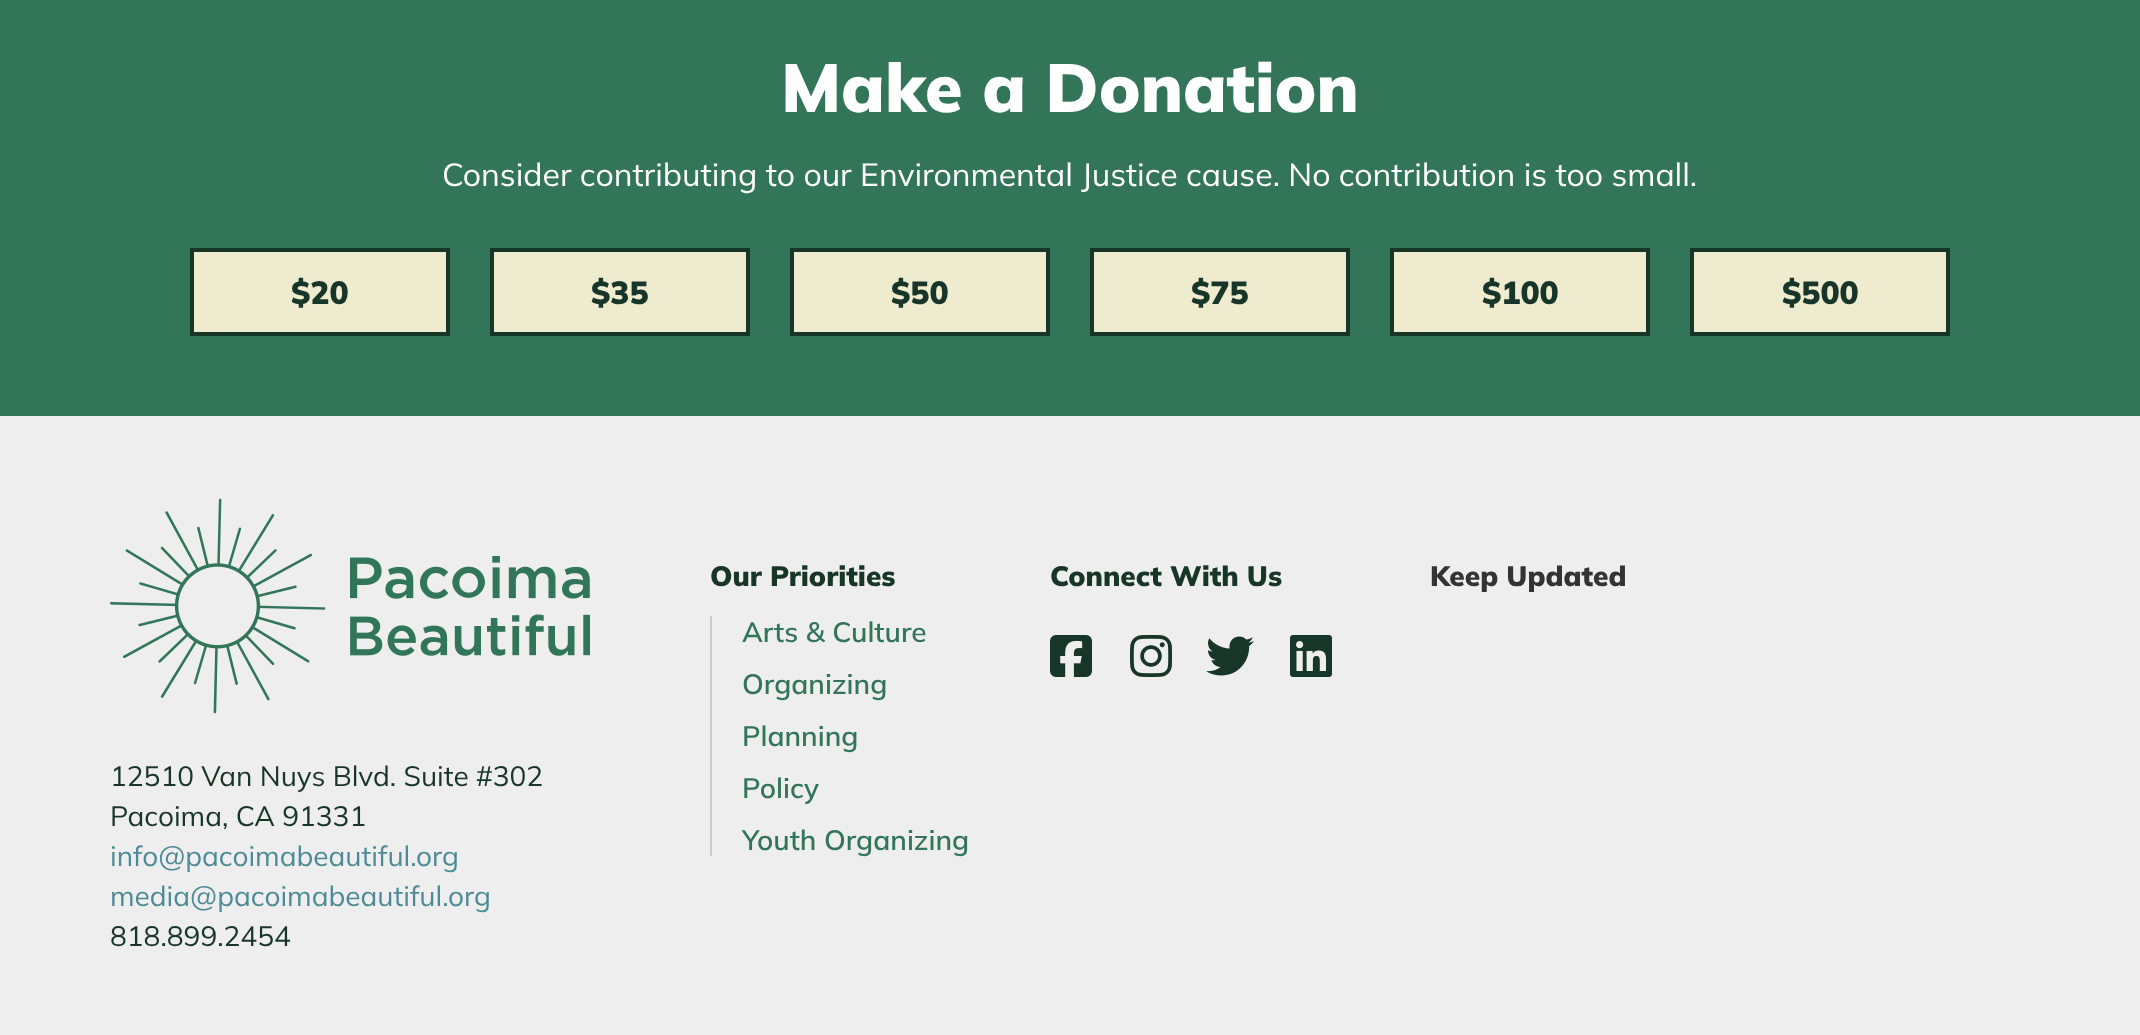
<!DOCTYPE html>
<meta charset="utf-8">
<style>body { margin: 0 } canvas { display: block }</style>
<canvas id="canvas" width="2140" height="1035"></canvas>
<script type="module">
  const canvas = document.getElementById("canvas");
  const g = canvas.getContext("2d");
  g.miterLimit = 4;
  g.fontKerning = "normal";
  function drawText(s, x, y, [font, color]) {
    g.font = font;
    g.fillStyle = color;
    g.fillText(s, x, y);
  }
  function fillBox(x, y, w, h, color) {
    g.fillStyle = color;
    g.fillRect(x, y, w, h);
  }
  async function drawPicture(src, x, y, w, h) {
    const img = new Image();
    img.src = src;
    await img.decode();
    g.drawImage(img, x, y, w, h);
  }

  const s1 = ["900 68px Mulish", "#FFFFFF"];
  const s2 = ["32px Mulish", "#FFFFFF"];
  const s3 = ["900 32px Mulish", "#173529"];
  const s4 = ["900 28px Mulish", "#173529"];
  const s5 = ["600 28px Mulish", "#327559"];
  const s6 = ["900 28px Mulish", "#333333"];
  const s7 = ["28px Mulish", "#173529"];
  const s8 = ["28px Mulish", "#4C8B95"];

  fillBox(0, 0, 2140, 1035, "#327559");
  drawText("Make a Donation", 781, 112, s1);
  drawText("Consider contributing to our Environmental Justice cause. No contribution is too small.", 442, 186, s2);
  g.fillStyle = "#EFEBCE";
  g.beginPath();
  g.rect(192, 250, 256, 84);
  g.fill();
  g.strokeStyle = "#173529";
  g.lineWidth = 4;
  g.stroke();
  drawText("$20", 291, 304, s3);
  g.fillStyle = "#EFEBCE";
  g.beginPath();
  g.rect(492, 250, 256, 84);
  g.fill();
  g.stroke();
  drawText("$35", 591, 304, s3);
  g.fillStyle = "#EFEBCE";
  g.beginPath();
  g.rect(792, 250, 256, 84);
  g.fill();
  g.stroke();
  drawText("$50", 891, 304, s3);
  g.fillStyle = "#EFEBCE";
  g.beginPath();
  g.rect(1092, 250, 256, 84);
  g.fill();
  g.stroke();
  drawText("$75", 1191, 304, s3);
  g.fillStyle = "#EFEBCE";
  g.beginPath();
  g.rect(1392, 250, 256, 84);
  g.fill();
  g.stroke();
  drawText("$100", 1482, 304, s3);
  g.fillStyle = "#EFEBCE";
  g.beginPath();
  g.rect(1692, 250, 256, 84);
  g.fill();
  g.stroke();
  drawText("$500", 1782, 304, s3);
  fillBox(0, 416, 2140, 619, "#EEEEEE");
  drawText("Our Priorities", 710, 586, s4);
  fillBox(710, 616, 2, 240, "#CCCCCC");
  drawText("Arts & Culture", 742, 642, s5);
  drawText("Organizing", 742, 694, s5);
  drawText("Planning", 742, 746, s5);
  drawText("Policy", 742, 798, s5);
  drawText("Youth Organizing", 742, 850, s5);
  drawText("Connect With Us", 1050, 586, s4);
  await drawPicture("pic1.png", 1050, 635, 42, 42);
  await drawPicture("pic2.png", 1130, 635, 42, 42);
  await drawPicture("pic3.png", 1206, 636, 48, 40);
  await drawPicture("pic4.png", 1290, 635, 42, 42);
  drawText("Keep Updated", 1430, 586, s6);
  await drawPicture("pic5.png", 110, 498, 480, 216);
  drawText("12510 Van Nuys Blvd. Suite #302", 110, 786, s7);
  drawText("Pacoima, CA 91331", 110, 826, s7);
  drawText("info@pacoimabeautiful.org", 110, 866, s8);
  drawText("media@pacoimabeautiful.org", 110, 906, s8);
  drawText("818.899.2454", 110, 946, s7);
</script>
